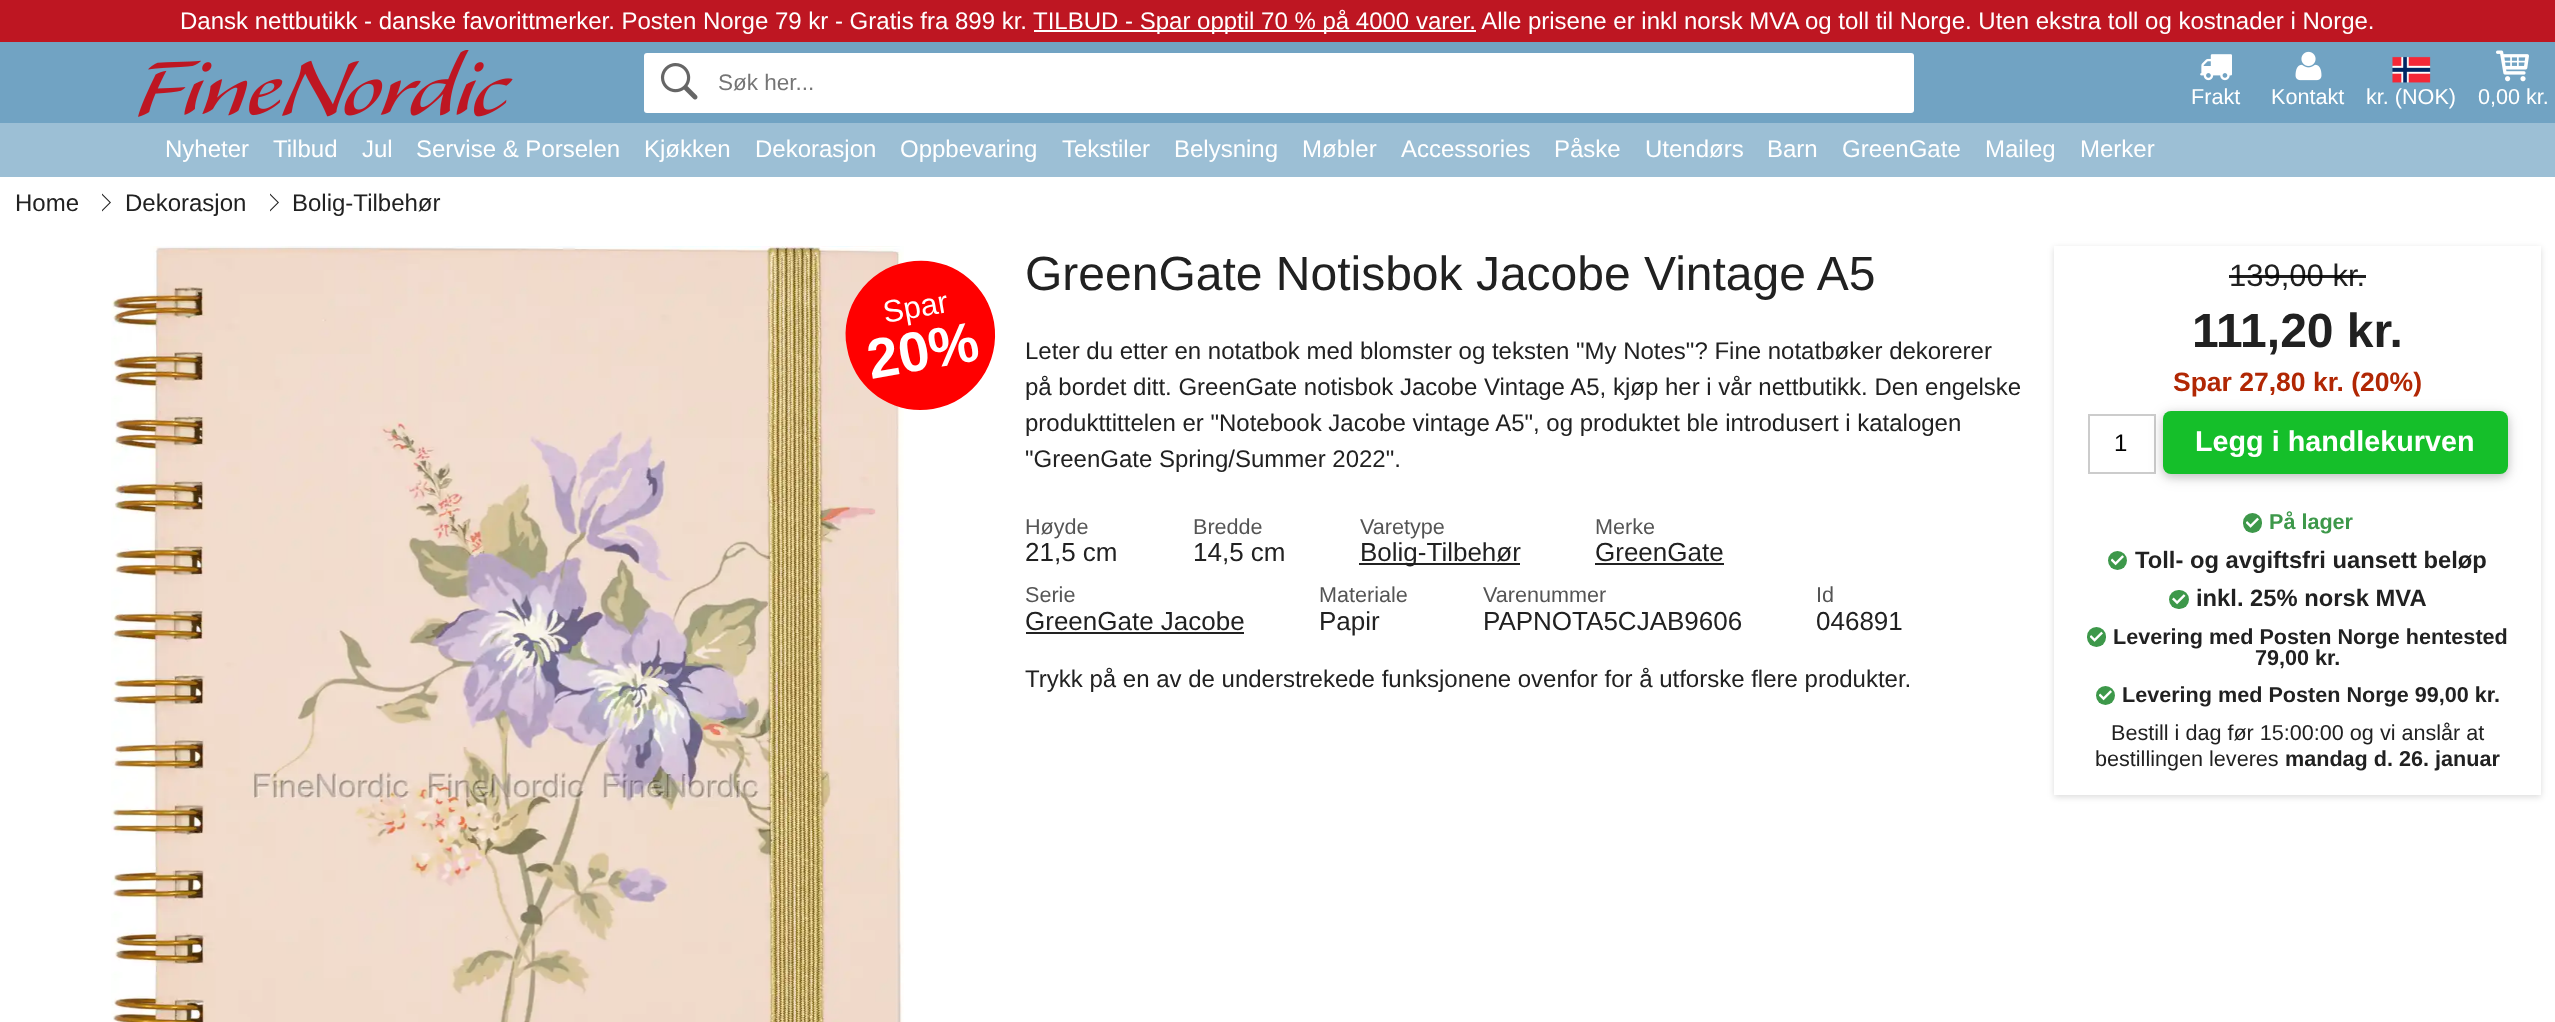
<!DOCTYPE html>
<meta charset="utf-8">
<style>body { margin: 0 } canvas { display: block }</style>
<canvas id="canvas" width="2555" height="1022"></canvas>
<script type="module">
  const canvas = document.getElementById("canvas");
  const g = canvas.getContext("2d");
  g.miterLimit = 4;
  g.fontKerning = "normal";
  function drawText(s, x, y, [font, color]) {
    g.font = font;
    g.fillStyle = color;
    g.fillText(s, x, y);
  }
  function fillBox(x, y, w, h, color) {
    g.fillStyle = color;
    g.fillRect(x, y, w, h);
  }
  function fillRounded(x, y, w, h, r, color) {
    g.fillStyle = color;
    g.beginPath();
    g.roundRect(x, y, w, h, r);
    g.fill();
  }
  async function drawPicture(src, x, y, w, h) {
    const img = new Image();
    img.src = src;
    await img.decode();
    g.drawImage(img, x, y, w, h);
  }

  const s1 = ["24px Liberation Sans", "#FFFFFF"];
  const s2 = ["22.5px Liberation Sans", "#757575"];
  const s3 = ["21.6px Liberation Sans", "#FFFFFF"];
  const s4 = ["24px Liberation Sans", "#212121"];
  const s5 = ["48px Liberation Sans", "#212121"];
  const s6 = ["31px Liberation Sans", "#212121"];
  const s7 = ["bold 48px Liberation Sans", "#212121"];
  const s8 = ["bold 26.5px Liberation Sans", "#B12704"];
  const s9 = ["24px Liberation Sans", "#000000"];
  const s10 = ["bold 28.75px Liberation Sans", "#FFFFFF"];
  const s11 = ["bold 21.6px Liberation Sans", "#3D984A"];
  const s12 = ["bold 23.75px Liberation Sans", "#212121"];
  const s13 = ["bold 21.6px Liberation Sans", "#212121"];
  const s14 = ["21.6px Liberation Sans", "#212121"];
  const s15 = ["21.6px Liberation Sans", "#555555"];
  const s16 = ["26px Liberation Sans", "#212121"];

  fillBox(0, 0, 2555, 1022, "#FFFFFF");
  fillBox(0, 0, 2555, 42, "#BE1622");
  drawText("Dansk nettbutikk - danske favorittmerker. Posten Norge 79 kr - Gratis fra 899 kr.", 180, 29, s1);
  fillBox(1034, 30, 442, 2, "#FFFFFF");
  drawText("TILBUD - Spar opptil 70 % på 4000 varer. Alle prisene er inkl norsk MVA og toll til Norge. Uten ekstra toll og kostnader i Norge.", 1033, 29, s1);
  fillBox(0, 42, 2555, 81, "#71A3C3");
  await drawPicture("pic1.png", 138, 50, 375, 67);
  fillRounded(644, 53, 1270, 60, 3, "#FFFFFF");
  await drawPicture("pic2.png", 660, 63, 38, 37);
  drawText("Søk her...", 718, 90, s2);
  await drawPicture("pic3.png", 2200, 54, 32, 27);
  drawText("Frakt", 2191, 104, s3);
  await drawPicture("pic4.png", 2295, 51, 27, 30);
  drawText("Kontakt", 2271, 104, s3);
  await drawPicture("pic5.png", 2392, 56, 39, 27);
  drawText("kr. (NOK)", 2366, 104, s3);
  await drawPicture("pic6.png", 2496, 50, 33, 32);
  drawText("0,00 kr.", 2478, 104, s3);
  fillBox(0, 123, 2555, 54, "#9CBFD5");
  drawText("Nyheter", 165, 157, s1);
  drawText("Tilbud", 273, 157, s1);
  drawText("Jul", 362, 157, s1);
  drawText("Servise & Porselen", 416, 157, s1);
  drawText("Kjøkken", 644, 157, s1);
  drawText("Dekorasjon", 755, 157, s1);
  drawText("Oppbevaring", 900, 157, s1);
  drawText("Tekstiler", 1062, 157, s1);
  drawText("Belysning", 1174, 157, s1);
  drawText("Møbler", 1302, 157, s1);
  drawText("Accessories", 1401, 157, s1);
  drawText("Påske", 1554, 157, s1);
  drawText("Utendørs", 1645, 157, s1);
  drawText("Barn", 1767, 157, s1);
  drawText("GreenGate", 1842, 157, s1);
  drawText("Maileg", 1985, 157, s1);
  drawText("Merker", 2080, 157, s1);
  drawText("Home", 15, 211, s4);
  g.beginPath();
  g.moveTo(102, 211.5);
  g.lineTo(102, 193.5);
  g.lineTo(111, 202.5);
  g.closePath();
  g.fill();
  g.fillStyle = "#FFFFFF";
  g.beginPath();
  g.moveTo(100.5, 211.5);
  g.lineTo(100.5, 193.5);
  g.lineTo(109.5, 202.5);
  g.closePath();
  g.fill();
  drawText("Dekorasjon", 125, 211, s4);
  g.beginPath();
  g.moveTo(270, 211.5);
  g.lineTo(270, 193.5);
  g.lineTo(279, 202.5);
  g.closePath();
  g.fill();
  g.fillStyle = "#FFFFFF";
  g.beginPath();
  g.moveTo(268.5, 211.5);
  g.lineTo(268.5, 193.5);
  g.lineTo(277.5, 202.5);
  g.closePath();
  g.fill();
  drawText("Bolig-Tilbehør", 292, 211, s4);
  await drawPicture("pic7.png", 111, 246, 793, 776);
  g.fillStyle = "#FF0000";
  g.beginPath();
  g.moveTo(907, 262);
  g.bezierCurveTo(948, 254, 987, 282, 994, 322);
  g.bezierCurveTo(1001, 363, 974, 402, 933, 409);
  g.bezierCurveTo(893, 416, 854, 389, 847, 348);
  g.bezierCurveTo(839, 308, 867, 269, 907, 262);
  g.closePath();
  g.fill();
  g.font = "31px Liberation Sans";
  g.fillStyle = "#FFFFFF";
  g.save();
  g.translate(885, 323);
  g.rotate(-10 * Math.PI / 180);
  g.fillText("Spar", 0, 0);
  g.restore();
  g.font = "bold 56px Liberation Sans";
  g.save();
  g.translate(871, 379);
  g.rotate(-10 * Math.PI / 180);
  g.fillText("20%", 0, 0);
  g.restore();
  drawText("GreenGate Notisbok Jacobe Vintage A5", 1025, 290, s5);
  g.save();
  g.beginPath();
  g.moveTo(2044, 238);
  g.lineTo(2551, 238);
  g.lineTo(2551, 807);
  g.lineTo(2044, 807);
  g.closePath();
  g.moveTo(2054, 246);
  g.lineTo(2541, 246);
  g.lineTo(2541, 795);
  g.lineTo(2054, 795);
  g.closePath();
  g.clip("evenodd");
  g.fillStyle = "rgba(0, 0, 0, 0.14)";
  g.filter = "blur(3px)";
  g.beginPath();
  g.rect(2054, 248, 487, 549);
  g.fill();
  g.filter = "none";
  g.restore();
  drawText("139,00 kr.", 2229, 286, s6);
  fillBox(2229, 275, 137, 3, "rgba(0, 0, 0, 0.87)");
  drawText("111,20 kr.", 2192, 347, s7);
  drawText("Spar 27,80 kr. (20%)", 2173, 391, s8);
  g.strokeStyle = "#CCCCCC";
  g.lineWidth = 2;
  g.strokeRect(2089, 415, 66, 58);
  drawText("1", 2114, 451, s9);
  g.fillStyle = "rgba(0, 0, 0, 0.12)";
  g.filter = "blur(7.5px)";
  g.beginPath();
  g.roundRect(2163, 414, 345, 63, 8);
  g.fill();
  g.filter = "none";
  g.fillStyle = "rgba(0, 0, 0, 0.16)";
  g.filter = "blur(4px)";
  g.beginPath();
  g.roundRect(2163, 414, 345, 63, 8);
  g.fill();
  g.filter = "none";
  fillRounded(2163, 411, 345, 63, 8, "#15BF2A");
  drawText("Legg i handlekurven", 2195, 451, s10);
  fillRounded(2243, 513, 19, 20, 9.5, "#3D984A");
  await drawPicture("pic8.png", 2246, 517, 13, 11);
  drawText("På lager", 2269, 529, s11);
  g.beginPath();
  g.arc(2117.5, 560.5, 9.5, 0, Math.PI * 2);
  g.fill();
  await drawPicture("pic9.png", 2111, 555, 13, 11);
  drawText("Toll- og avgiftsfri uansett beløp", 2135, 568, s12);
  fillRounded(2169, 590, 20, 19, 9.5, "#3D984A");
  await drawPicture("pic10.png", 2172, 594, 14, 11);
  drawText("inkl. 25% norsk MVA", 2196, 606, s12);
  fillRounded(2087, 627, 19, 20, 9.5, "#3D984A");
  await drawPicture("pic8.png", 2090, 631, 13, 11);
  drawText("Levering med Posten Norge hentested", 2113, 644, s13);
  drawText("79,00 kr.", 2255, 665, s13);
  g.fillStyle = "#3D984A";
  g.beginPath();
  g.arc(2105.5, 695.5, 9.5, 0, Math.PI * 2);
  g.fill();
  await drawPicture("pic9.png", 2099, 690, 13, 11);
  drawText("Levering med Posten Norge 99,00 kr.", 2122, 702, s13);
  drawText("Bestill i dag før 15:00:00 og vi anslår at", 2111, 740, s14);
  drawText("bestillingen leveres", 2095, 766, s14);
  drawText("mandag d. 26. januar", 2285, 766, s13);
  drawText("Leter du etter en notatbok med blomster og teksten \"My Notes\"? Fine notatbøker dekorerer", 1025, 359, s4);
  drawText("på bordet ditt. GreenGate notisbok Jacobe Vintage A5, kjøp her i vår nettbutikk. Den engelske", 1025, 395, s4);
  drawText("produkttittelen er \"Notebook Jacobe vintage A5\", og produktet ble introdusert i katalogen", 1025, 431, s4);
  drawText("\"GreenGate Spring/Summer 2022\".", 1025, 467, s4);
  drawText("Høyde", 1025, 534, s15);
  drawText("21,5 cm", 1025, 561, s16);
  drawText("Bredde", 1193, 534, s15);
  drawText("14,5 cm", 1193, 561, s16);
  drawText("Varetype", 1360, 534, s15);
  fillBox(1359, 563, 161, 2, "#222222");
  drawText("Bolig-Tilbehør", 1360, 561, s16);
  drawText("Merke", 1595, 534, s15);
  drawText("GreenGate", 1595, 561, s16);
  fillBox(1595, 563, 129, 2, "#222222");
  drawText("Serie", 1025, 602, s15);
  drawText("GreenGate Jacobe", 1025, 630, s16);
  fillBox(1026, 632, 218, 2, "#222222");
  drawText("Materiale", 1319, 602, s15);
  drawText("Papir", 1319, 630, s16);
  drawText("Varenummer", 1483, 602, s15);
  drawText("PAPNOTA5CJAB9606", 1483, 630, s16);
  drawText("Id", 1816, 602, s15);
  drawText("046891", 1816, 630, s16);
  drawText("Trykk på en av de understrekede funksjonene ovenfor for å utforske flere produkter.", 1025, 687, s4);
</script>
